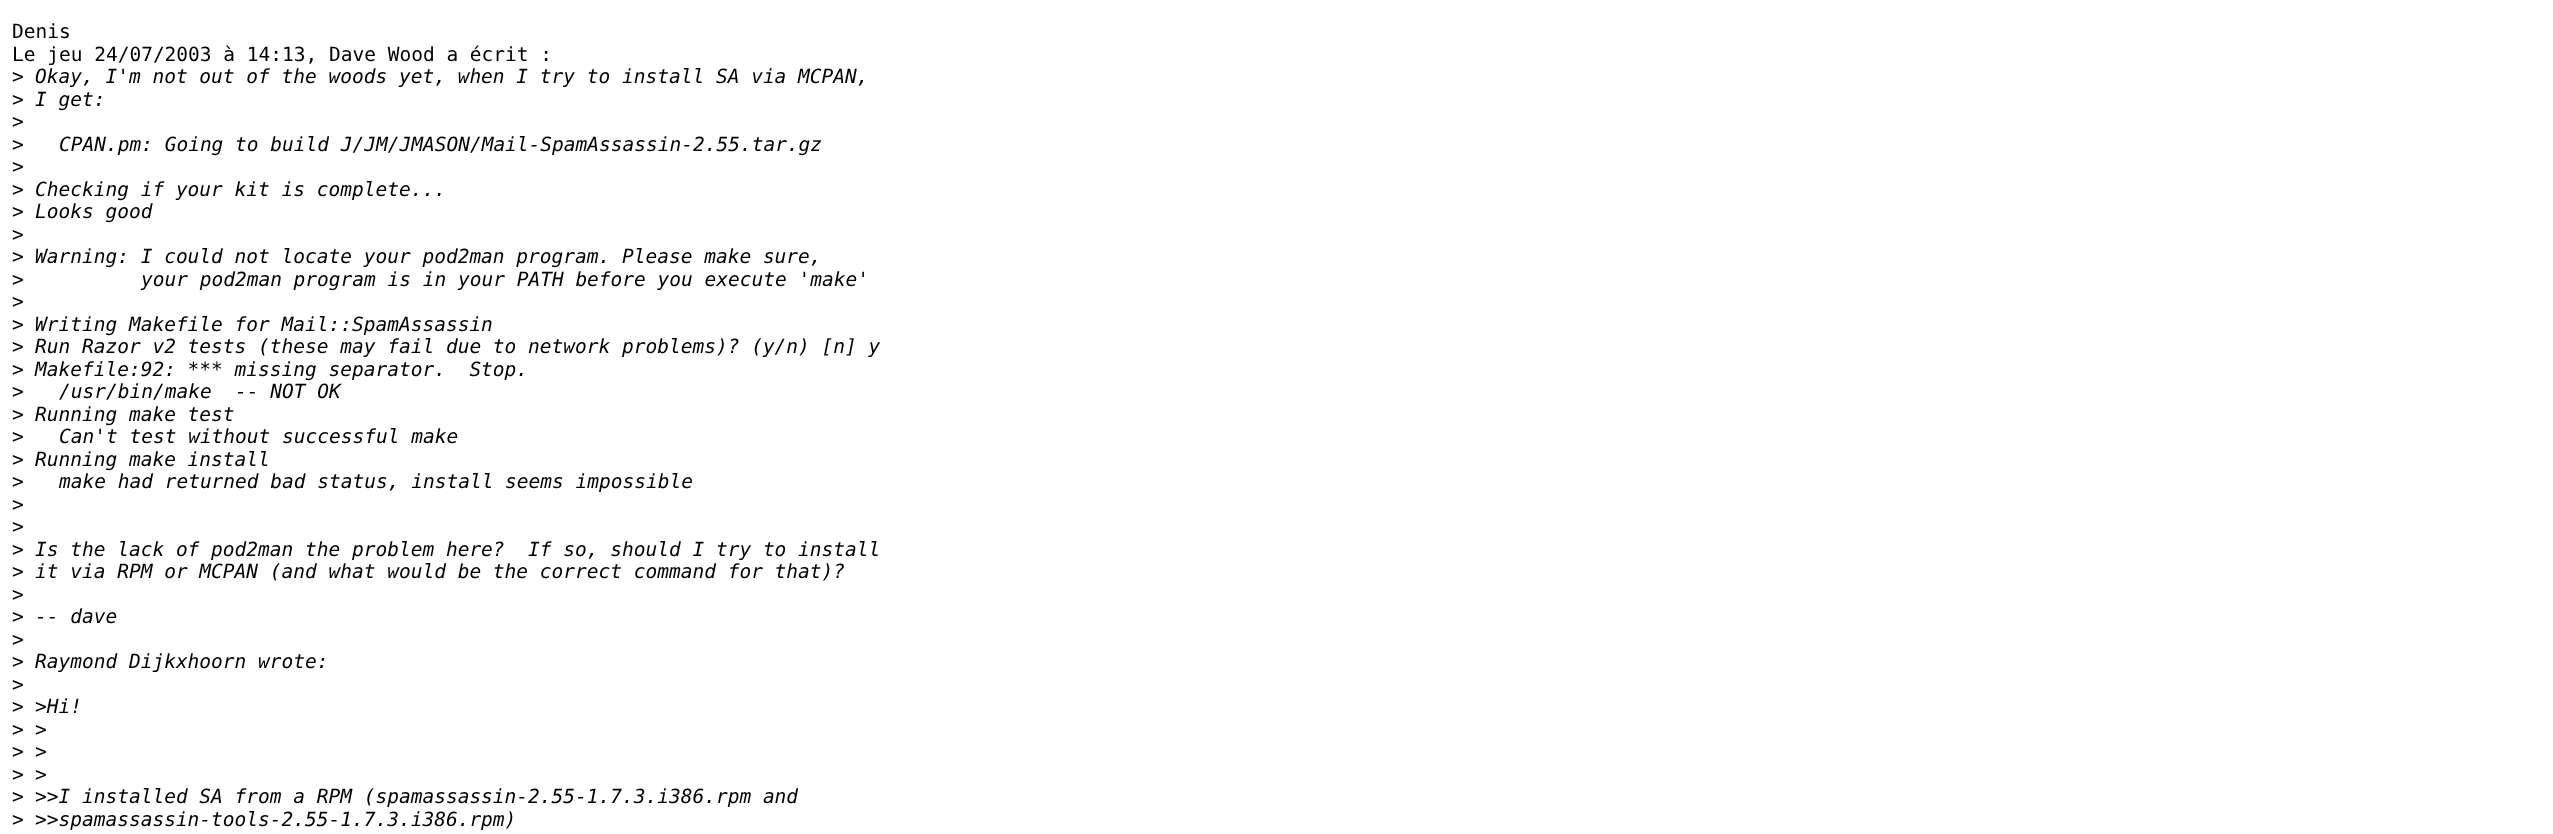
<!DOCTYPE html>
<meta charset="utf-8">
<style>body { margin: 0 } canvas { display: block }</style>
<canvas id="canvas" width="2553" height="834"></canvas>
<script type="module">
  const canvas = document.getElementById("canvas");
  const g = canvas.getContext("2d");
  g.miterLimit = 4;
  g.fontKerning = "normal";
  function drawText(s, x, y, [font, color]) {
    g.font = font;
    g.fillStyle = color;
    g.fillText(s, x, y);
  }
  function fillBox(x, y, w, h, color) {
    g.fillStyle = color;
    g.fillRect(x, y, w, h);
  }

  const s1 = ["19.5px DejaVu Sans Mono", "#000000"];
  const s2 = ["italic 19.5px DejaVu Sans Mono", "#000000"];

  fillBox(0, 0, 2553, 834, "#FFFFFF");
  drawText("Denis", 12, 38, s1);
  drawText("Le jeu 24/07/2003 à 14:13, Dave Wood a écrit :", 12, 61, s1);
  drawText(">", 12, 83, s1);
  drawText("Okay, I'm not out of the woods yet, when I try to install SA via MCPAN,", 35, 83, s2);
  drawText(">", 12, 106, s1);
  drawText("I get:", 35, 106, s2);
  drawText(">", 12, 128, s1);
  drawText(">", 12, 151, s1);
  drawText("CPAN.pm: Going to build J/JM/JMASON/Mail-SpamAssassin-2.55.tar.gz", 59, 151, s2);
  drawText(">", 12, 173, s1);
  drawText(">", 12, 196, s1);
  drawText("Checking if your kit is complete...", 35, 196, s2);
  drawText(">", 12, 218, s1);
  drawText("Looks good", 35, 218, s2);
  drawText(">", 12, 241, s1);
  drawText(">", 12, 263, s1);
  drawText("Warning: I could not locate your pod2man program. Please make sure,", 35, 263, s2);
  drawText(">", 12, 286, s1);
  drawText("your pod2man program is in your PATH before you execute 'make'", 141, 286, s2);
  drawText(">", 12, 308, s1);
  drawText(">", 12, 331, s1);
  drawText("Writing Makefile for Mail::SpamAssassin", 35, 331, s2);
  drawText(">", 12, 353, s1);
  drawText("Run Razor v2 tests (these may fail due to network problems)? (y/n) [n] y", 35, 353, s2);
  drawText(">", 12, 376, s1);
  drawText("Makefile:92: *** missing separator.  Stop.", 35, 376, s2);
  drawText(">", 12, 398, s1);
  drawText("/usr/bin/make  -- NOT OK", 59, 398, s2);
  drawText(">", 12, 421, s1);
  drawText("Running make test", 35, 421, s2);
  drawText(">", 12, 443, s1);
  drawText("Can't test without successful make", 59, 443, s2);
  drawText(">", 12, 466, s1);
  drawText("Running make install", 35, 466, s2);
  drawText(">", 12, 488, s1);
  drawText("make had returned bad status, install seems impossible", 59, 488, s2);
  drawText(">", 12, 511, s1);
  drawText(">", 12, 533, s1);
  drawText(">", 12, 556, s1);
  drawText("Is the lack of pod2man the problem here?  If so, should I try to install", 35, 556, s2);
  drawText(">", 12, 578, s1);
  drawText("it via RPM or MCPAN (and what would be the correct command for that)?", 35, 578, s2);
  drawText(">", 12, 601, s1);
  drawText(">", 12, 623, s1);
  drawText("-- dave", 35, 623, s2);
  drawText(">", 12, 646, s1);
  drawText(">", 12, 668, s1);
  drawText("Raymond Dijkxhoorn wrote:", 35, 668, s2);
  drawText(">", 12, 691, s1);
  drawText(">", 12, 713, s1);
  drawText(">Hi!", 35, 713, s2);
  drawText(">", 12, 736, s1);
  drawText(">", 35, 736, s2);
  drawText(">", 12, 758, s1);
  drawText(">", 35, 758, s2);
  drawText(">", 12, 781, s1);
  drawText(">", 35, 781, s2);
  drawText(">", 12, 803, s1);
  drawText(">>I installed SA from a RPM (spamassassin-2.55-1.7.3.i386.rpm and", 35, 803, s2);
  drawText(">", 12, 826, s1);
  drawText(">>spamassassin-tools-2.55-1.7.3.i386.rpm)", 35, 826, s2);
</script>
